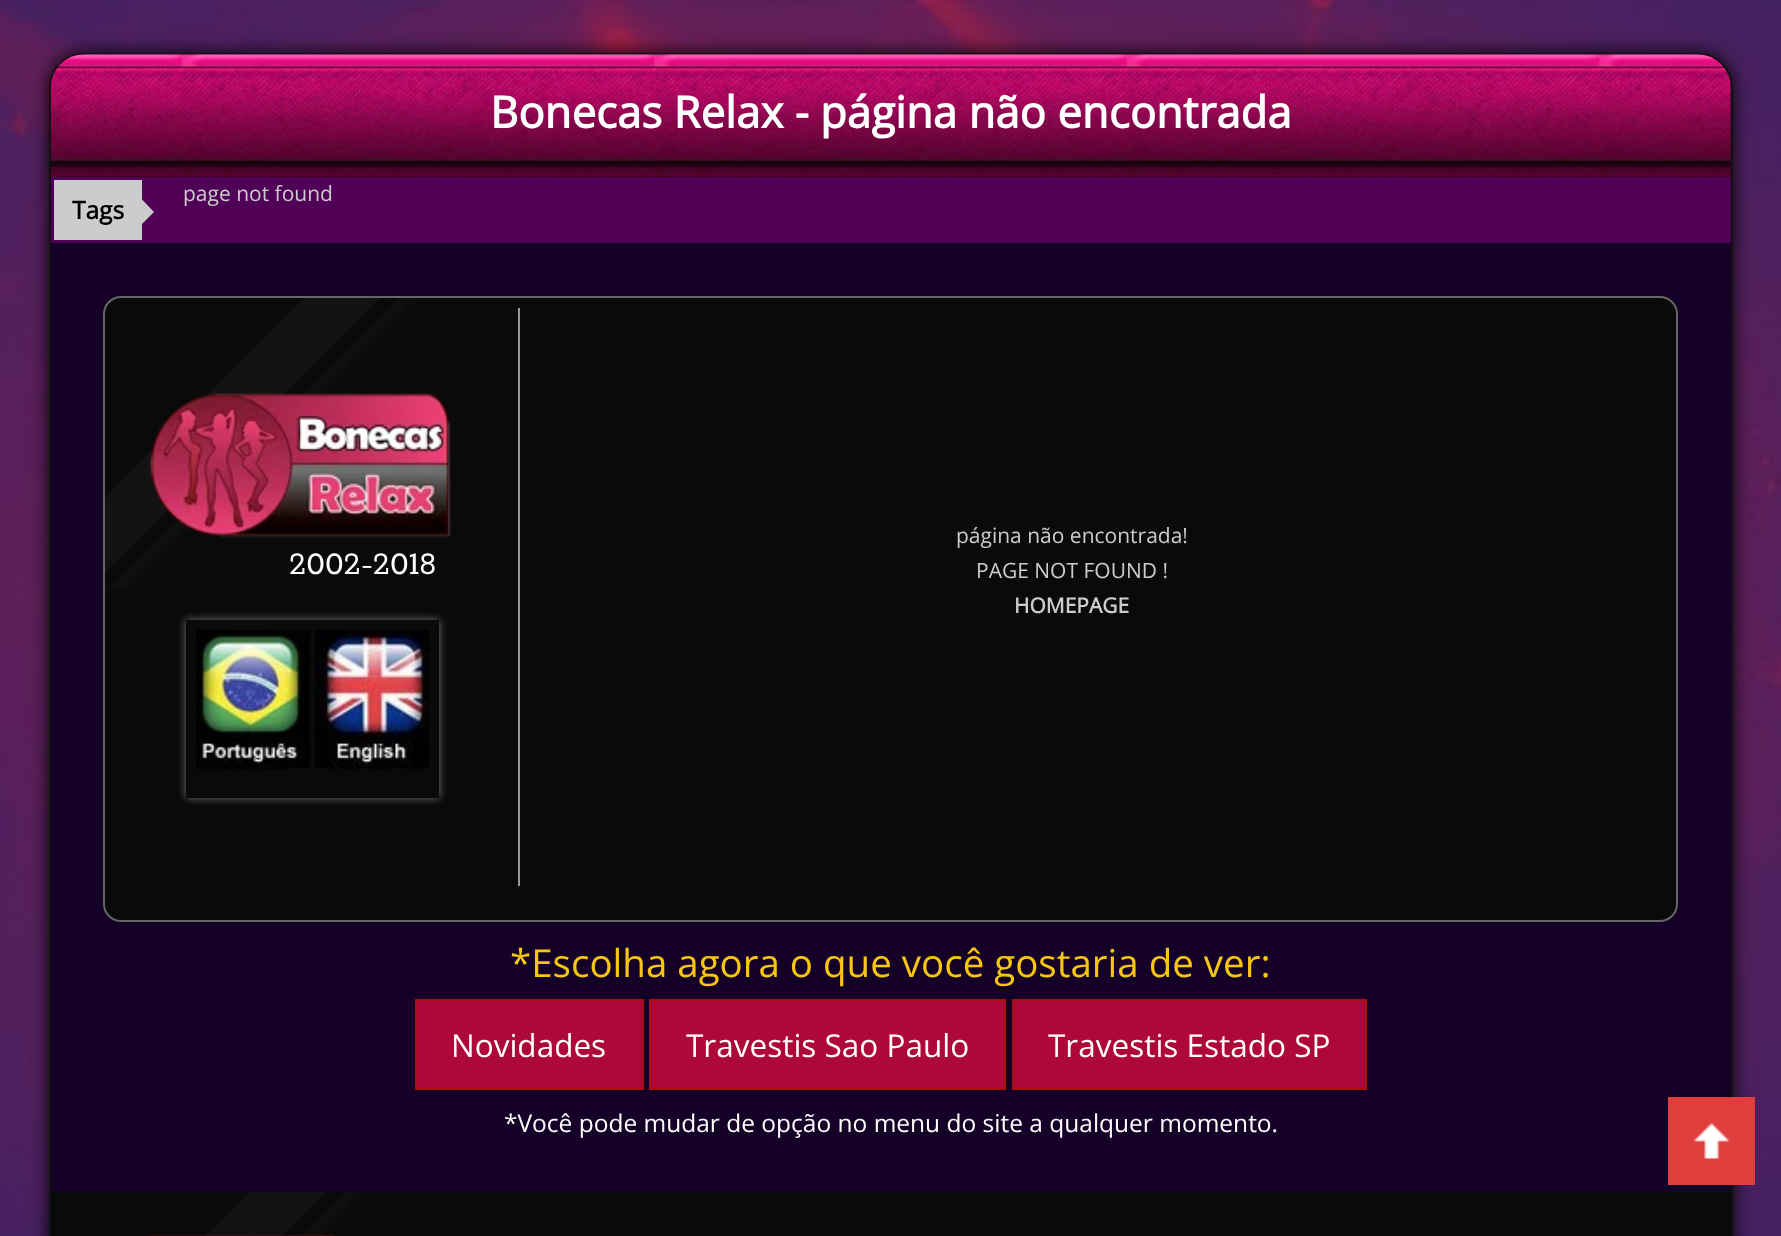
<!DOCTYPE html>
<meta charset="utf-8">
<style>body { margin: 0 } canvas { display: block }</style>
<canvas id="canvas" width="1781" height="1236"></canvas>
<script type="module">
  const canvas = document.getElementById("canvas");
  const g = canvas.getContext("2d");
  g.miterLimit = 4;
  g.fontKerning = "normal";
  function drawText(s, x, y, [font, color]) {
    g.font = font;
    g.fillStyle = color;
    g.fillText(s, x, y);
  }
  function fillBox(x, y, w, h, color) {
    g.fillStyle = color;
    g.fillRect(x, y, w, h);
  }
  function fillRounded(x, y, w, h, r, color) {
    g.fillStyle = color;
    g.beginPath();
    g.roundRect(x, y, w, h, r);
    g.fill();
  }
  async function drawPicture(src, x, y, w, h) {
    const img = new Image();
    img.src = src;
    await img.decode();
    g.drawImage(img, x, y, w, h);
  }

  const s1 = ["bold 43.75px Open Sans", "#FFFFFF"];
  const s2 = ["21px Open Sans", "#CCCCCC"];
  const s3 = ["bold 24.5px Open Sans", "#000000"];
  const s4 = ["600 35px Rokkitt", "#FFFFFF"];
  const s5 = ["bold 21px Open Sans", "#CCCCCC"];
  const s6 = ["38.5px Open Sans", "#F7C610"];
  const s7 = ["31.5px Open Sans", "#FFFFFF"];
  const s8 = ["24.5px Open Sans", "#FFFFFF"];

  fillBox(0, 0, 1781, 1236, "#FFFFFF");
  await drawPicture("pic1.png", 0, 0, 1781, 1236);
  g.fillStyle = "rgba(0, 0, 0, 0.95)";
  g.filter = "blur(9px)";
  g.beginPath();
  g.roundRect(49, 53, 1684, 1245, 35);
  g.fill();
  g.filter = "none";
  g.beginPath();
  g.roundRect(50, 54, 1682, 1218, 34);
  g.strokeStyle = "#111111";
  g.lineWidth = 2;
  g.stroke();
  await drawPicture("pic2.png", 50, 54, 1681, 123);
  drawText("Bonecas Relax - página não encontrada", 490, 128, s1);
  fillBox(51, 177, 1680, 66, "#500056");
  drawText("page not found", 183, 201, s2);
  fillBox(54, 180, 88, 60, "#CCCCCC");
  drawText("Tags", 72, 219, s3);
  g.fillStyle = "#CCCCCC";
  g.beginPath();
  g.moveTo(142, 224);
  g.lineTo(142, 199.5);
  g.lineTo(154, 212);
  g.closePath();
  g.fill();
  fillBox(51, 243, 1680, 949, "#150027");
  fillRounded(103, 296, 1575, 626, 18, "#0A0A0A");
  await drawPicture("pic3.png", 105, 298, 311, 291);
  g.beginPath();
  g.roundRect(104, 297, 1573, 624, 17);
  g.strokeStyle = "#666666";
  g.stroke();
  await drawPicture("pic4.png", 150, 393, 301, 145);
  drawText("2002-2018", 289, 574, s4);
  g.save();
  g.beginPath();
  g.moveTo(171, 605);
  g.lineTo(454, 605);
  g.lineTo(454, 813);
  g.lineTo(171, 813);
  g.closePath();
  g.moveTo(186, 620);
  g.lineTo(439, 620);
  g.lineTo(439, 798);
  g.lineTo(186, 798);
  g.closePath();
  g.clip("evenodd");
  g.fillStyle = "rgba(202, 202, 202, 0.55)";
  g.filter = "blur(4.5px)";
  g.beginPath();
  g.rect(186, 620, 253, 178);
  g.fill();
  g.filter = "none";
  g.restore();
  await drawPicture("pic5.png", 196, 630, 114, 140);
  await drawPicture("pic6.png", 315, 630, 114, 140);
  fillBox(518, 308, 2, 578, "#999999");
  drawText("página não encontrada!", 956, 543, s2);
  drawText("PAGE NOT FOUND !", 976, 578, s2);
  drawText("HOMEPAGE", 1014, 613, s5);
  drawText("*Escolha agora o que você gostaria de ver:", 510, 977, s6);
  g.fillStyle = "#AE083B";
  g.beginPath();
  g.rect(416, 1000, 227, 89);
  g.fill();
  g.strokeStyle = "#A90F0F";
  g.stroke();
  drawText("Novidades", 451, 1057, s7);
  g.fillStyle = "#AE083B";
  g.beginPath();
  g.rect(650, 1000, 355, 89);
  g.fill();
  g.stroke();
  drawText("Travestis Sao Paulo", 686, 1057, s7);
  g.fillStyle = "#AE083B";
  g.beginPath();
  g.rect(1013, 1000, 353, 89);
  g.fill();
  g.stroke();
  drawText("Travestis Estado SP", 1048, 1057, s7);
  drawText("*Você pode mudar de opção no menu do site a qualquer momento.", 504, 1132, s8);
  fillBox(51, 1192, 1680, 44, "#0A0A0A");
  await drawPicture("pic7.png", 1302, 1191, 2, 1);
  fillBox(1668, 1097, 87, 88, "#E03D3D");
  await drawPicture("pic8.png", 1693, 1123, 37, 36);
  await drawPicture("pic9.png", 206, 1191, 156, 45);
  await drawPicture("pic10.png", 142, 1235, 196, 1);
</script>
